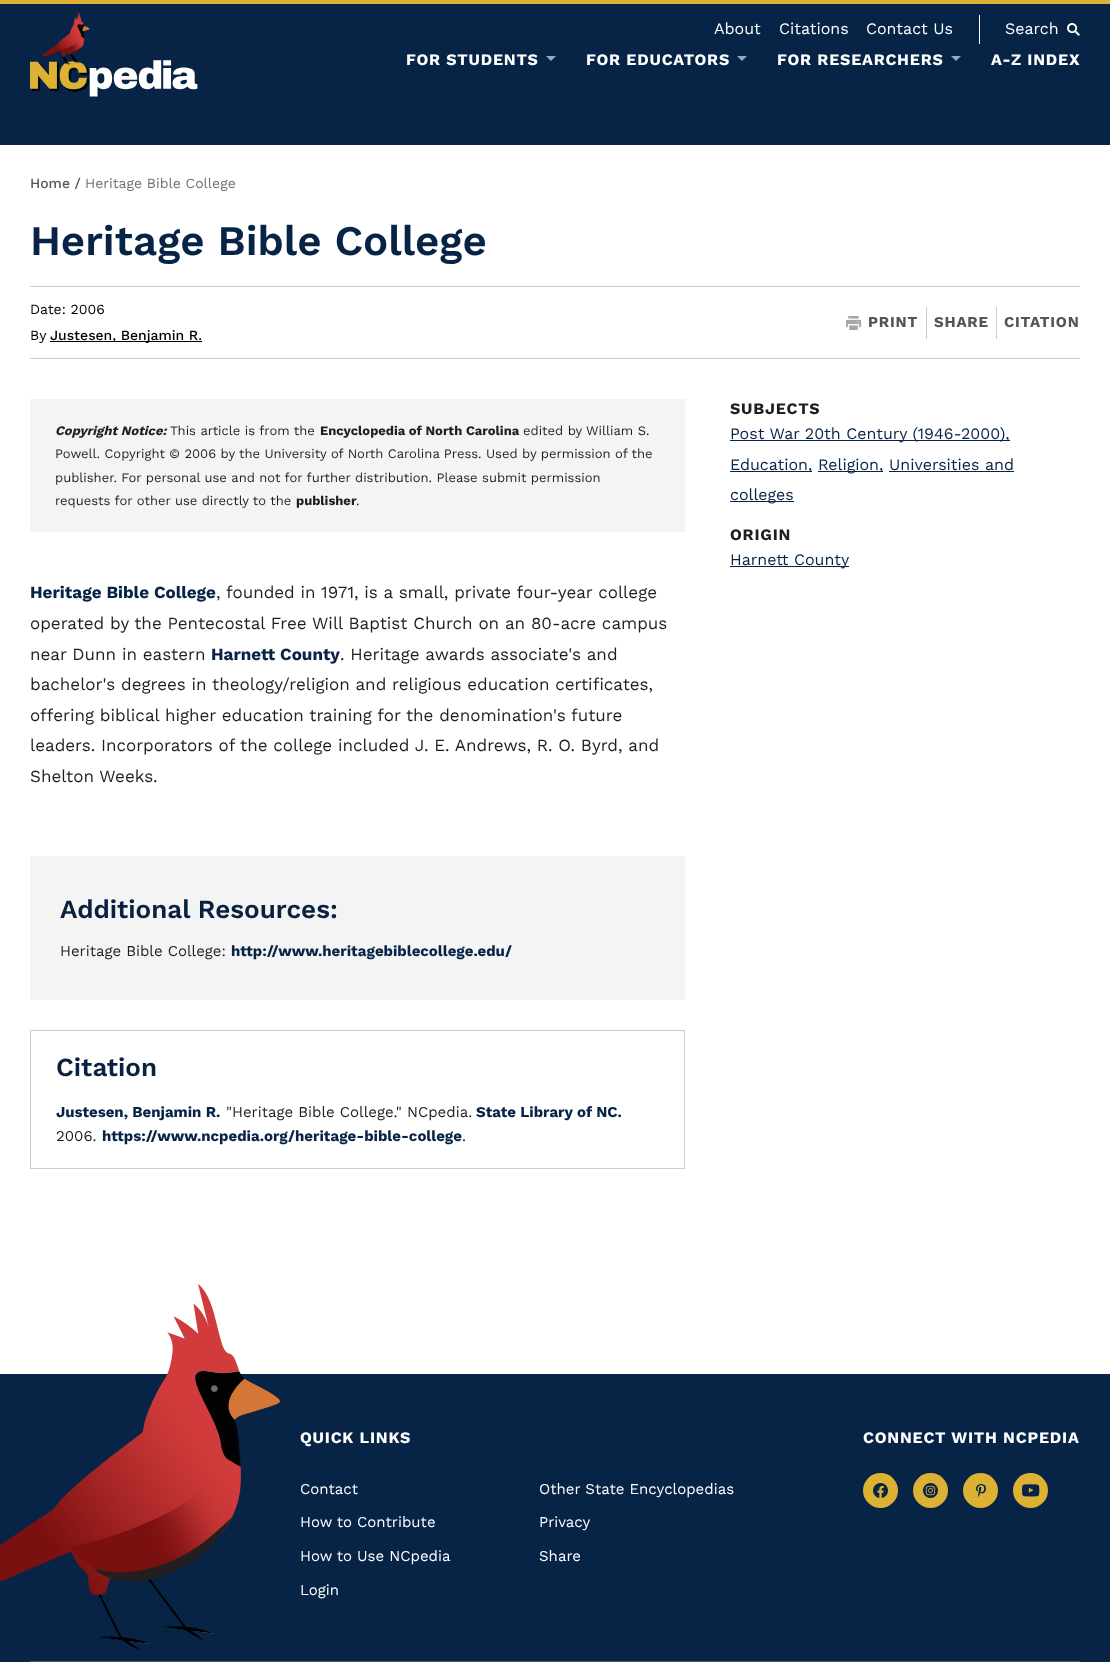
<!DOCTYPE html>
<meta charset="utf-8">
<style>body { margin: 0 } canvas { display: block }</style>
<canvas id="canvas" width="1110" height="1662"></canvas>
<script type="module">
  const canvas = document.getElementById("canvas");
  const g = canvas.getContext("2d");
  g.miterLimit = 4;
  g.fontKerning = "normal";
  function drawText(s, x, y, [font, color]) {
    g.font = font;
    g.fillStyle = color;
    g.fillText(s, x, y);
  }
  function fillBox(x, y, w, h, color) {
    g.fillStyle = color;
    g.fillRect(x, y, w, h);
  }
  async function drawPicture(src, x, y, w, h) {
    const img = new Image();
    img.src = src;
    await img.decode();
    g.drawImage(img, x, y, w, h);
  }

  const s1 = ["16px Work Sans", "#FFFFFF"];
  const s2 = ["bold 16px Work Sans", "#FFFFFF"];
  const s3 = ["500 14px Work Sans", "#555555"];
  const s4 = ["14px Work Sans", "#6D7278"];
  const s5 = ["600 42px Work Sans", "#072447"];
  const s6 = ["14px Work Sans", "#000000"];
  const s7 = ["500 14px Work Sans", "#000000"];
  const s8 = ["bold 15px Work Sans", "#555555"];
  const s9 = ["italic bold 13px Work Sans", "#1C2024"];
  const s10 = ["13px Work Sans", "#1C2024"];
  const s11 = ["bold 13px Work Sans", "#1C2024"];
  const s12 = ["bold 17px Work Sans", "#072447"];
  const s13 = ["17px Work Sans", "#1C2024"];
  const s14 = ["600 26px Work Sans", "#08213F"];
  const s15 = ["15px Work Sans", "#1C2024"];
  const s16 = ["bold 15px Work Sans", "#072447"];
  const s17 = ["bold 16px Work Sans", "#1C2024"];
  const s18 = ["16px Work Sans", "#072447"];
  const s19 = ["15px Work Sans", "#FFFFFF"];

  fillBox(0, 0, 1110, 1662, "#FFFFFF");
  fillBox(0, 4, 1110, 141, "#072447");
  fillBox(0, 0, 1110, 4, "#DDB133");
  await drawPicture("pic1.png", 30, 12, 168, 85);
  drawText("About", 714, 34, s1);
  drawText("Citations", 779, 34, s1);
  drawText("Contact Us", 866, 34, s1);
  fillBox(979, 15, 1, 29, "#FFFFFF");
  drawText("Search", 1005, 34, s1);
  await drawPicture("pic2.png", 1067, 23, 13, 13);
  g.letterSpacing = "0.8px";
  drawText("FOR STUDENTS", 406, 65, s2);
  g.fillStyle = "#9CA7B5";
  g.beginPath();
  g.moveTo(546, 56);
  g.lineTo(556, 56);
  g.lineTo(551, 61);
  g.closePath();
  g.fill();
  drawText("FOR EDUCATORS", 586, 65, s2);
  g.fillStyle = "#9CA7B5";
  g.beginPath();
  g.moveTo(737, 56);
  g.lineTo(747, 56);
  g.lineTo(742, 61);
  g.closePath();
  g.fill();
  drawText("FOR RESEARCHERS", 777, 65, s2);
  g.fillStyle = "#9CA7B5";
  g.beginPath();
  g.moveTo(951, 56);
  g.lineTo(961, 56);
  g.lineTo(956, 61);
  g.closePath();
  g.fill();
  drawText("A-Z INDEX", 991, 65, s2);
  g.letterSpacing = "0px";
  drawText("Home /", 30, 188, s3);
  drawText("Heritage Bible College", 85, 188, s4);
  drawText("Heritage Bible College", 30, 255, s5);
  fillBox(30, 286, 1050, 1, "#CCCCCC");
  fillBox(30, 358, 1050, 1, "#CCCCCC");
  drawText("Date: 2006", 30, 314, s6);
  drawText("By", 30, 340, s6);
  fillBox(50, 341, 152, 1, "#000000");
  drawText("Justesen, Benjamin R.", 50, 340, s7);
  await drawPicture("pic3.png", 846, 316, 16, 14);
  g.letterSpacing = "0.8px";
  drawText("PRINT", 868, 327, s8);
  fillBox(926, 307, 1, 32, "#CCCCCC");
  drawText("SHARE", 934, 327, s8);
  fillBox(996, 307, 1, 32, "#CCCCCC");
  drawText("CITATION", 1004, 327, s8);
  fillBox(30, 399, 655, 133, "#F4F4F4");
  g.letterSpacing = "0px";
  drawText("Copyright Notice:", 55, 435, s9);
  drawText("This article is from the", 170, 435, s10);
  drawText("Encyclopedia of North Carolina", 320, 435, s11);
  drawText("edited by William S.", 523, 435, s10);
  drawText("Powell. Copyright © 2006 by the University of North Carolina Press. Used by permission of the", 55, 458, s10);
  drawText("publisher. For personal use and not for further distribution. Please submit permission", 55, 482, s10);
  drawText("requests for other use directly to the", 55, 505, s10);
  drawText("publisher", 296, 505, s11);
  drawText(".", 356, 505, s10);
  drawText("Heritage Bible College", 30, 598, s12);
  drawText(", founded in 1971, is a small, private four-year college", 216, 598, s13);
  drawText("operated by the Pentecostal Free Will Baptist Church on an 80-acre campus", 30, 629, s13);
  drawText("near Dunn in eastern", 30, 660, s13);
  drawText("Harnett County", 211, 660, s12);
  drawText(". Heritage awards associate's and", 340, 660, s13);
  drawText("bachelor's degrees in theology/religion and religious education certificates,", 30, 690, s13);
  drawText("offering biblical higher education training for the denomination's future", 30, 721, s13);
  drawText("leaders. Incorporators of the college included J. E. Andrews, R. O. Byrd, and", 30, 751, s13);
  drawText("Shelton Weeks.", 30, 782, s13);
  fillBox(30, 856, 655, 144, "#F4F4F4");
  drawText("Additional Resources:", 60, 918, s14);
  drawText("Heritage Bible College:", 60, 956, s15);
  drawText("http://www.heritagebiblecollege.edu/", 231, 956, s16);
  g.strokeStyle = "#CCCCCC";
  g.strokeRect(30.5, 1030.5, 654, 138);
  drawText("Citation", 56, 1076, s14);
  drawText("Justesen, Benjamin R.", 56, 1117, s16);
  drawText("\"Heritage Bible College.\" NCpedia.", 226, 1117, s15);
  drawText("State Library of NC.", 476, 1117, s16);
  drawText("2006.", 56, 1141, s15);
  drawText("https://www.ncpedia.org/heritage-bible-college", 102, 1141, s16);
  drawText(".", 462, 1141, s15);
  g.letterSpacing = "0.8px";
  drawText("SUBJECTS", 730, 414, s17);
  fillBox(730, 440, 280, 1, "#072447");
  g.letterSpacing = "0px";
  drawText("Post War 20th Century (1946-2000),", 730, 439, s18);
  fillBox(730, 471, 82, 1, "#072447");
  drawText("Education,", 730, 470, s18);
  fillBox(818, 471, 65, 1, "#072447");
  drawText("Religion,", 818, 470, s18);
  drawText("Universities and", 889, 470, s18);
  fillBox(889, 471, 125, 1, "#072447");
  fillBox(730, 501, 64, 1, "#072447");
  drawText("colleges", 730, 500, s18);
  g.letterSpacing = "0.8px";
  drawText("ORIGIN", 730, 540, s17);
  fillBox(730, 566, 119, 1, "#072447");
  g.letterSpacing = "0px";
  drawText("Harnett County", 730, 565, s18);
  fillBox(0, 1374, 1110, 288, "#072447");
  await drawPicture("pic4.png", 0, 1284, 280, 367);
  g.letterSpacing = "0.8px";
  drawText("QUICK LINKS", 300, 1443, s2);
  g.letterSpacing = "0px";
  drawText("Contact", 300, 1494, s19);
  drawText("Other State Encyclopedias", 539, 1494, s19);
  drawText("How to Contribute", 300, 1527, s19);
  drawText("Privacy", 539, 1527, s19);
  drawText("How to Use NCpedia", 300, 1561, s19);
  drawText("Share", 539, 1561, s19);
  drawText("Login", 300, 1595, s19);
  g.letterSpacing = "0.8px";
  drawText("CONNECT WITH NCPEDIA", 863, 1443, s2);
  g.fillStyle = "#DDB133";
  g.beginPath();
  g.arc(880.5, 1490.5, 17.5, 0, Math.PI * 2);
  g.fill();
  await drawPicture("pic5.png", 873, 1483, 15, 15);
  g.beginPath();
  g.arc(930.5, 1490.5, 17.5, 0, Math.PI * 2);
  g.fill();
  await drawPicture("pic6.png", 923, 1483, 15, 15);
  g.beginPath();
  g.arc(980.5, 1490.5, 17.5, 0, Math.PI * 2);
  g.fill();
  await drawPicture("pic7.png", 976, 1484, 10, 13);
  g.beginPath();
  g.arc(1030.5, 1490.5, 17.5, 0, Math.PI * 2);
  g.fill();
  await drawPicture("pic8.png", 1022, 1484, 18, 13);
  fillBox(30, 1661, 1050, 1, "#455B75");
</script>
